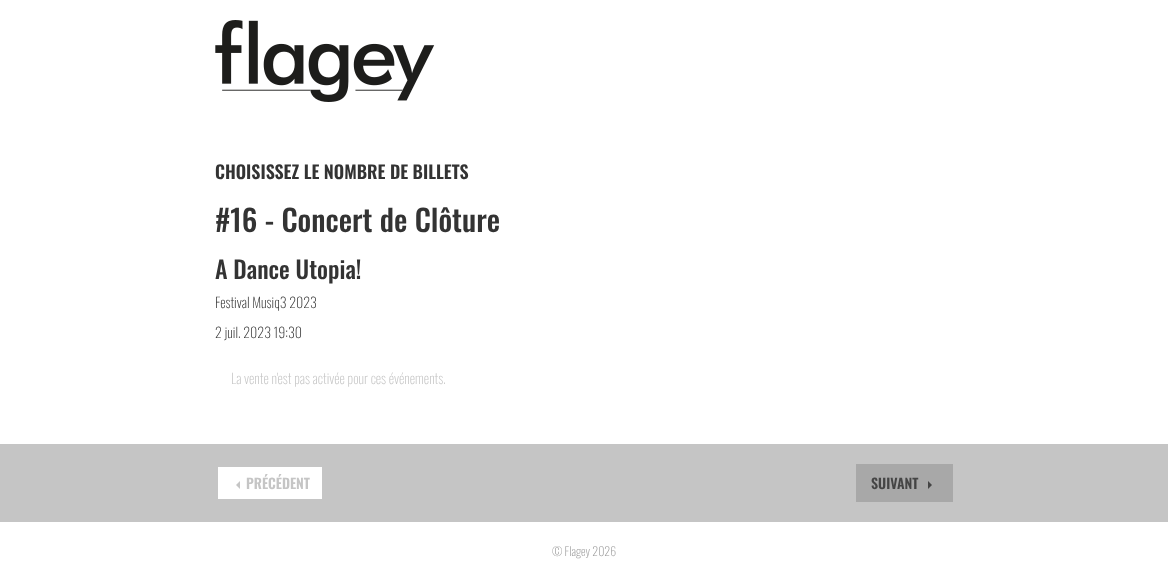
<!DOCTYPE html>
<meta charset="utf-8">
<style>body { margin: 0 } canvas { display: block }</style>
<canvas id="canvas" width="1168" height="573"></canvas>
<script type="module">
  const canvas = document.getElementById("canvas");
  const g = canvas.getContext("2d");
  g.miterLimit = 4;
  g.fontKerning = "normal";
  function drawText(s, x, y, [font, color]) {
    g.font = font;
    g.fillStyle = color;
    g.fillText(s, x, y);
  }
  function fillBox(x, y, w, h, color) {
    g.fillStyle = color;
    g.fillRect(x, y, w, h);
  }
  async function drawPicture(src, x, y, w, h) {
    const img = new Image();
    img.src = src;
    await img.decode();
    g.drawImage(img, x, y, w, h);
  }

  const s1 = ["600 18px Oswald", "#333333"];
  const s2 = ["500 30px Oswald", "#333333"];
  const s3 = ["500 24px Oswald", "#333333"];
  const s4 = ["200 14px Oswald", "#333333"];
  const s5 = ["200 14px Oswald", "#C5C5C5"];
  const s6 = ["600 14px Oswald", "#C5C5C5"];
  const s7 = ["600 14px Oswald", "#454545"];
  const s8 = ["200 12px Oswald", "#999999"];

  fillBox(0, 0, 1168, 573, "#FFFFFF");
  await drawPicture("pic1.png", 215, 20, 220, 82);
  drawText("CHOISISSEZ LE NOMBRE DE BILLETS", 215, 179, s1);
  drawText("#16 - Concert de Clôture", 215, 232, s2);
  drawText("A Dance Utopia!", 215, 279, s3);
  drawText("Festival Musiq3 2023", 215, 308, s4);
  drawText("2 juil. 2023 19:30", 215, 338, s4);
  drawText("La vente n'est pas activée pour ces événements.", 231, 384, s5);
  fillBox(0, 444, 1168, 78, "#C5C5C5");
  fillBox(218, 467, 104, 32, "#FFFFFF");
  g.fillStyle = "#C5C5C5";
  g.beginPath();
  g.moveTo(240, 481);
  g.lineTo(240, 489);
  g.lineTo(236, 485);
  g.closePath();
  g.fill();
  drawText("PRÉCÉDENT", 246, 489, s6);
  fillBox(856, 464, 97, 38, "#A8A8A8");
  drawText("SUIVANT", 871, 489, s7);
  g.beginPath();
  g.moveTo(928, 489);
  g.lineTo(928, 481);
  g.lineTo(932, 485);
  g.closePath();
  g.fill();
  drawText("© Flagey 2026", 552, 556, s8);
</script>
